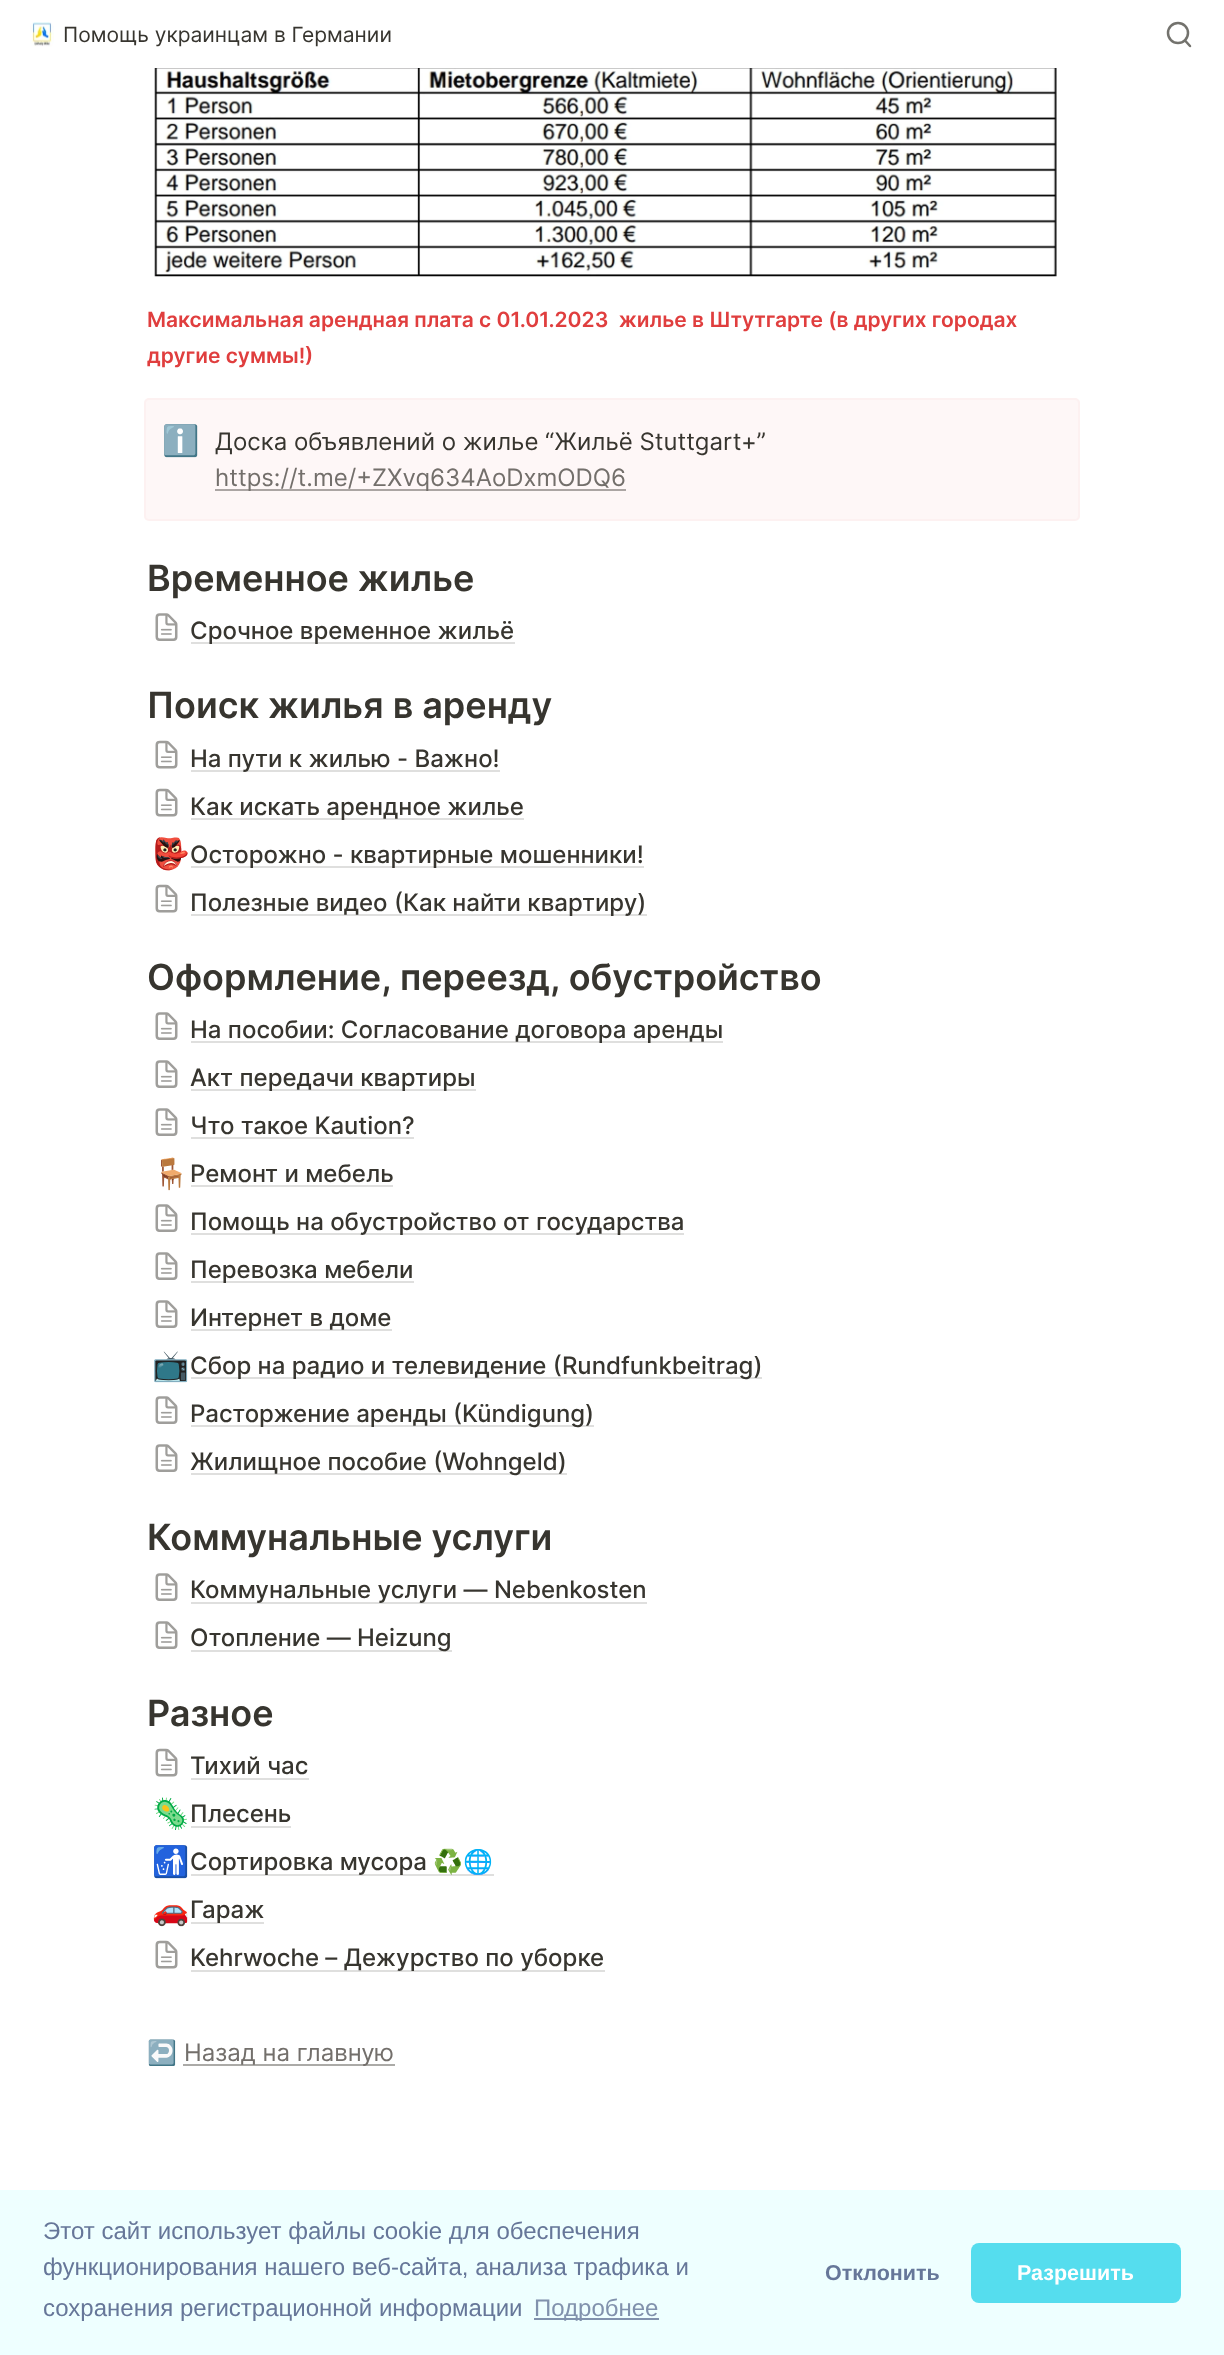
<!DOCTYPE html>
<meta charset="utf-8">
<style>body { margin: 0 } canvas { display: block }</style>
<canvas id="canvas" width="1224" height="2355"></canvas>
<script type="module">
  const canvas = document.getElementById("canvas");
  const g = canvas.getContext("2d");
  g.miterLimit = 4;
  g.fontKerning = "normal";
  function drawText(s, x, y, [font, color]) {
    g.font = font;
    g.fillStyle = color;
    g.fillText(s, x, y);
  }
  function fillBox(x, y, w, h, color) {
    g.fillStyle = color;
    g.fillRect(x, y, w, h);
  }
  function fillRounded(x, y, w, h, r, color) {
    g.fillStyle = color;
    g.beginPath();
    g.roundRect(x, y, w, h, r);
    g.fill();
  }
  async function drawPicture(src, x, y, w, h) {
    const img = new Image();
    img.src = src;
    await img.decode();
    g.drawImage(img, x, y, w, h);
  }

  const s1 = ["21px Inter", "#37352F"];
  const s2 = ["600 21px Inter", "#E03E3E"];
  const s3 = ["30px Noto Color Emoji", "#37352F"];
  const s4 = ["24px Inter", "#37352F"];
  const s5 = ["24px Inter", "#736F6B"];
  const s6 = ["600 36px Inter", "#37352F"];
  const s7 = ["500 24px Inter", "#37352F"];
  const s8 = ["24px Noto Color Emoji", "#37352F"];
  const s9 = ["24px Liberation Sans", "#667799"];
  const s10 = ["24px Liberation Sans", "#8192AD"];
  const s11 = ["bold 21.5px Liberation Sans", "#667799"];
  const s12 = ["bold 21.5px Liberation Sans", "#FFFFFF"];

  fillBox(0, 0, 1224, 2355, "#FFFFFF");
  await drawPicture("pic1.png", 30, 22, 24, 25);
  drawText("Помощь украинцам в Германии", 63, 42, s1);
  g.beginPath();
  g.arc(1178, 33, 10, 0, Math.PI * 2);
  g.strokeStyle = "#73726D";
  g.lineWidth = 2.5;
  g.stroke();
  g.beginPath();
  g.moveTo(1190, 46);
  g.lineTo(1185, 40.5);
  g.lineCap = "round";
  g.lineJoin = "round";
  g.stroke();
  await drawPicture("pic2.png", 154, 68, 903, 209);
  drawText("Максимальная арендная плата с 01.01.2023  жилье в Штутгарте (в других городах", 147, 327, s2);
  drawText("другие суммы!)", 147, 363, s2);
  fillRounded(144, 398, 936, 123, 5, "#FEF7F7");
  g.beginPath();
  g.roundRect(145, 399, 934, 121, 4);
  g.strokeStyle = "rgba(251, 228, 228, 0.3)";
  g.lineWidth = 2;
  g.lineJoin = "miter";
  g.stroke();
  drawText("ℹ️", 162, 451, s3);
  drawText("Доска объявлений о жилье “Жильё Stuttgart+”", 215, 450, s4);
  fillBox(215, 489, 411, 2, "#ABA5A3");
  drawText("https://t.me/+ZXvq634AoDxmODQ6", 215, 486, s5);
  drawText("Временное жилье", 147, 591, s6);
  await drawPicture("pic3.png", 155, 613, 23, 28);
  fillBox(191, 642, 324, 2, "#DFDFDE");
  drawText("Срочное временное жильё", 190, 639, s7);
  drawText("Поиск жилья в аренду", 147, 718, s6);
  await drawPicture("pic4.png", 155, 740, 23, 29);
  fillBox(191, 770, 309, 2, "#DFDFDE");
  drawText("На пути к жилью - Важно!", 190, 767, s7);
  await drawPicture("pic4.png", 155, 788, 23, 29);
  fillBox(191, 818, 333, 2, "#DFDFDE");
  drawText("Как искать арендное жилье", 190, 815, s7);
  drawText("👺", 152, 864, s3);
  fillBox(191, 866, 453, 2, "#DFDFDE");
  drawText("Осторожно - квартирные мошенники!", 190, 863, s7);
  await drawPicture("pic4.png", 155, 884, 23, 29);
  fillBox(191, 914, 456, 2, "#DFDFDE");
  drawText("Полезные видео (Как найти квартиру)", 190, 911, s7);
  drawText("Оформление, переезд, обустройство", 147, 990, s6);
  await drawPicture("pic3.png", 155, 1012, 23, 28);
  fillBox(191, 1041, 532, 2, "#DFDFDE");
  drawText("На пособии: Согласование договора аренды", 190, 1038, s7);
  await drawPicture("pic3.png", 155, 1060, 23, 28);
  fillBox(191, 1089, 285, 2, "#DFDFDE");
  drawText("Акт передачи квартиры", 190, 1086, s7);
  await drawPicture("pic3.png", 155, 1108, 23, 28);
  drawText("Что такое Kaution?", 190, 1134, s7);
  fillBox(191, 1137, 223, 2, "#DFDFDE");
  drawText("🪑", 152, 1184, s3);
  drawText("Ремонт и мебель", 190, 1182, s7);
  fillBox(191, 1185, 202, 2, "#DFDFDE");
  await drawPicture("pic3.png", 155, 1204, 23, 28);
  fillBox(191, 1233, 493, 2, "#DFDFDE");
  drawText("Помощь на обустройство от государства", 190, 1230, s7);
  await drawPicture("pic3.png", 155, 1252, 23, 28);
  fillBox(191, 1281, 223, 2, "#DFDFDE");
  drawText("Перевозка мебели", 190, 1278, s7);
  await drawPicture("pic3.png", 155, 1300, 23, 28);
  fillBox(191, 1329, 201, 2, "#DFDFDE");
  drawText("Интернет в доме", 190, 1326, s7);
  drawText("📺", 152, 1376, s3);
  fillBox(191, 1377, 571, 2, "#DFDFDE");
  drawText("Сбор на радио и телевидение (Rundfunkbeitrag)", 190, 1374, s7);
  await drawPicture("pic3.png", 155, 1396, 23, 28);
  fillBox(191, 1425, 403, 2, "#DFDFDE");
  drawText("Расторжение аренды (Kündigung)", 190, 1422, s7);
  await drawPicture("pic3.png", 155, 1444, 23, 28);
  fillBox(191, 1473, 376, 2, "#DFDFDE");
  drawText("Жилищное пособие (Wohngeld)", 190, 1470, s7);
  drawText("Коммунальные услуги", 147, 1550, s6);
  await drawPicture("pic3.png", 155, 1573, 23, 28);
  fillBox(191, 1602, 456, 2, "#DFDFDE");
  drawText("Коммунальные услуги — Nebenkosten", 190, 1598, s7);
  await drawPicture("pic3.png", 155, 1621, 23, 28);
  fillBox(191, 1650, 261, 2, "#DFDFDE");
  drawText("Отопление — Heizung", 190, 1646, s7);
  drawText("Разное", 147, 1726, s6);
  await drawPicture("pic4.png", 155, 1748, 23, 29);
  drawText("Тихий час", 190, 1774, s7);
  fillBox(191, 1778, 118, 2, "#DFDFDE");
  drawText("🦠", 152, 1824, s3);
  drawText("Плесень", 190, 1822, s7);
  fillBox(191, 1826, 100, 2, "#DFDFDE");
  drawText("🚮", 152, 1872, s3);
  fillBox(191, 1874, 303, 2, "#DFDFDE");
  drawText("Сортировка мусора", 190, 1870, s7);
  drawText("♻️🌐", 433, 1870, s8);
  drawText("🚗", 152, 1920, s3);
  fillBox(191, 1922, 73, 2, "#DFDFDE");
  drawText("Гараж", 190, 1918, s7);
  await drawPicture("pic4.png", 155, 1940, 23, 29);
  fillBox(191, 1970, 414, 2, "#DFDFDE");
  drawText("Kehrwoche – Дежурство по уборке", 190, 1966, s7);
  drawText("↩️", 147, 2061, s8);
  fillBox(183, 2064, 212, 2, "#ABAAA7");
  drawText("Назад на главную", 184, 2061, s5);
  fillBox(0, 2190, 1224, 165, "#EEFFFF");
  drawText("Этот сайт использует файлы cookie для обеспечения", 43, 2239, s9);
  drawText("функционирования нашего веб-сайта, анализа трафика и", 43, 2275, s9);
  drawText("сохранения регистрационной информации", 43, 2316, s9);
  fillBox(534, 2318, 125, 2, "#8192AD");
  drawText("Подробнее", 534, 2316, s10);
  drawText("Отклонить", 825, 2280, s11);
  fillRounded(971, 2243, 210, 60, 8, "#55DDEE");
  drawText("Разрешить", 1017, 2280, s12);
</script>
